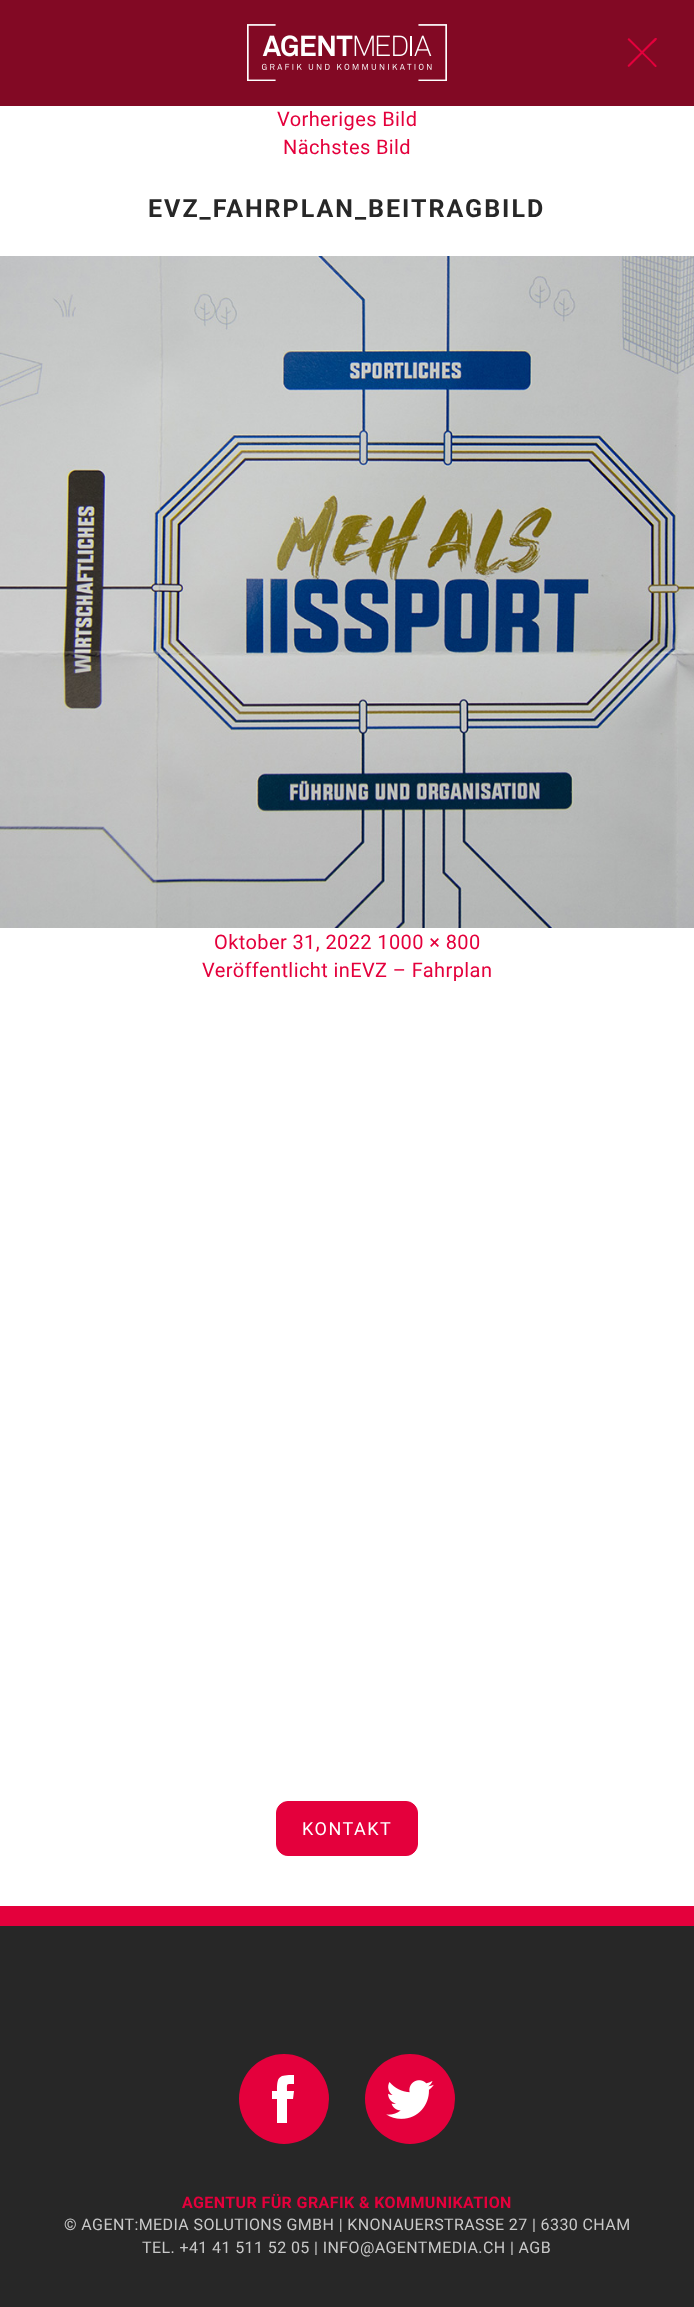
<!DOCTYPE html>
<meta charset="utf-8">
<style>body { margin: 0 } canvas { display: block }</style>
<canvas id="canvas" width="694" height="2307"></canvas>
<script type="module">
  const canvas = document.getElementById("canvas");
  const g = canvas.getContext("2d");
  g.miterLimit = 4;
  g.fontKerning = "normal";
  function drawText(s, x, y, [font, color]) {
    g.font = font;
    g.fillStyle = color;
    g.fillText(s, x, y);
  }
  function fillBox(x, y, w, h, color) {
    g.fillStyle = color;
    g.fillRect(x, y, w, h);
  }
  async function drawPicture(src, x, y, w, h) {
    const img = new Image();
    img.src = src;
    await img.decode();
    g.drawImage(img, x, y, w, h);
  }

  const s1 = ["20px Roboto", "#E4003C"];
  const s2 = ["bold 25px Roboto", "#272727"];
  const s3 = ["18px Roboto", "#FFFFFF"];
  const s4 = ["bold 16px Roboto", "#E4003C"];
  const s5 = ["16px Roboto", "#C9C9C9"];

  fillBox(0, 0, 694, 2307, "#FFFFFF");
  fillBox(0, 0, 694, 106, "#820924");
  await drawPicture("pic1.png", 247, 24, 200, 57);
  g.fillStyle = "#E4003C";
  g.beginPath();
  g.moveTo(629.5, 38.5);
  g.lineTo(656.5, 65.5);
  g.lineTo(656.5, 66.5);
  g.bezierCurveTo(655.5, 68.5, 653, 64.5, 650.5, 62);
  g.lineTo(628, 40);
  g.bezierCurveTo(627, 39, 628.5, 37.5, 629.5, 38.5);
  g.closePath();
  g.fill();
  g.beginPath();
  g.moveTo(628, 65);
  g.lineTo(655, 38);
  g.lineTo(656.5, 38);
  g.bezierCurveTo(658, 39.5, 654.5, 42, 652, 44);
  g.lineTo(629.5, 66.5);
  g.bezierCurveTo(628.5, 67.5, 627, 66, 628, 65);
  g.closePath();
  g.fill();
  g.letterSpacing = "0.4px";
  drawText("Vorheriges Bild", 277, 126, s1);
  drawText("Nächstes Bild", 283, 154, s1);
  g.letterSpacing = "2px";
  drawText("EVZ_FAHRPLAN_BEITRAGBILD", 148, 217, s2);
  await drawPicture("pic2.png", 0, 256, 694, 672);
  g.letterSpacing = "0.4px";
  drawText("Oktober 31, 2022 1000 × 800", 214, 949, s1);
  drawText("Veröffentlicht inEVZ – Fahrplan", 202, 977, s1);
  g.beginPath();
  g.roundRect(276.5, 1801.5, 141, 54, 11.5);
  g.fill();
  g.strokeStyle = "#E4003C";
  g.stroke();
  g.letterSpacing = "1.5px";
  drawText("KONTAKT", 302, 1835, s3);
  fillBox(0, 1926, 694, 381, "#272727");
  fillBox(0, 1906, 694, 20, "#E4003C");
  g.beginPath();
  g.arc(284, 2099, 45, 0, Math.PI * 2);
  g.fill();
  g.fillStyle = "#FFFFFF";
  g.beginPath();
  g.moveTo(294, 2075);
  g.lineTo(294, 2084);
  g.bezierCurveTo(286, 2084, 287, 2083, 287, 2091);
  g.lineTo(294, 2091);
  g.lineTo(293, 2099);
  g.lineTo(287, 2099);
  g.lineTo(287, 2123);
  g.lineTo(277, 2123);
  g.lineTo(277, 2099);
  g.lineTo(272, 2099);
  g.lineTo(272, 2091);
  g.lineTo(277, 2091);
  g.bezierCurveTo(277, 2076, 279, 2075, 294, 2075);
  g.closePath();
  g.fill();
  g.fillStyle = "#E4003C";
  g.beginPath();
  g.arc(410, 2099, 45, 0, Math.PI * 2);
  g.fill();
  await drawPicture("pic3.png", 386, 2080, 48, 39);
  g.letterSpacing = "0.4px";
  drawText("AGENTUR FÜR GRAFIK & KOMMUNIKATION", 182, 2208, s4);
  drawText("© AGENT:MEDIA SOLUTIONS GMBH | KNONAUERSTRASSE 27 | 6330 CHAM", 64, 2230, s5);
  drawText("TEL. +41 41 511 52 05 | INFO@AGENTMEDIA.CH | AGB", 142, 2253, s5);
</script>
